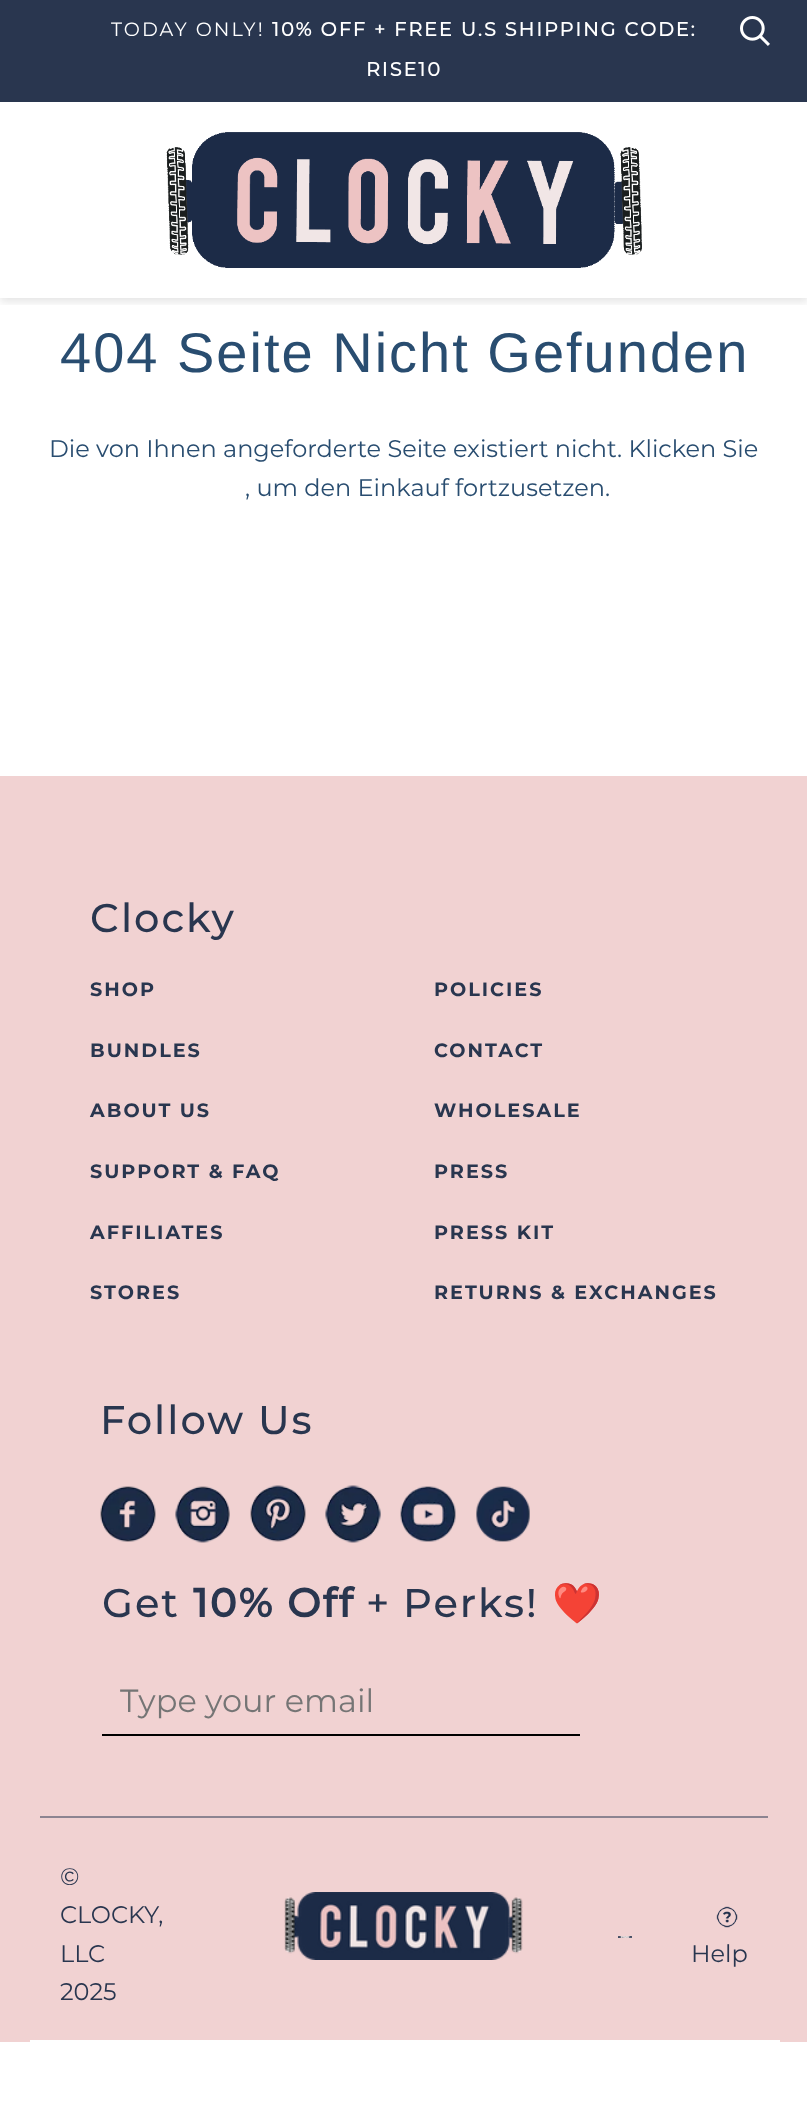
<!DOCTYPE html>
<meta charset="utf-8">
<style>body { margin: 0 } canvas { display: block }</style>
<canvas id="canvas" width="807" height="2119"></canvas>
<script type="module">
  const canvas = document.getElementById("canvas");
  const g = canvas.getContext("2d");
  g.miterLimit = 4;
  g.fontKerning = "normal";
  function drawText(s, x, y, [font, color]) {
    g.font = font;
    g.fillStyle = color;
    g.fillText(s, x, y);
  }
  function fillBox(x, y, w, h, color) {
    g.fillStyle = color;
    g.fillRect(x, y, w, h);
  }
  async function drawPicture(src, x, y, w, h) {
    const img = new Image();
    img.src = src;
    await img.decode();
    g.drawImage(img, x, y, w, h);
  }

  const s1 = ["19.2px 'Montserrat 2'", "#FFFFFF"];
  const s2 = ["bold 19.2px 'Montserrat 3'", "#FFFFFF"];
  const s3 = ["56px Liberation Sans", "#294D70"];
  const s4 = ["24px Montserrat", "#294D70"];
  const s5 = ["500 40px Montserrat", "#29364F"];
  const s6 = ["bold 19.2px Montserrat", "#29364F"];
  const s7 = ["bold 40px 'Montserrat 2'", "#29364F"];
  const s8 = ["40px Noto Color Emoji", "#29364F"];
  const s9 = ["32px Montserrat", "#757575"];
  const s10 = ["24px Montserrat", "#29364F"];

  fillBox(0, 0, 807, 2119, "#FFFFFF");
  g.save();
  g.beginPath();
  g.rect(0, 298, 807, 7);
  g.clip();
  g.fillStyle = "rgba(0, 0, 0, 0.1)";
  g.filter = "blur(4px)";
  g.beginPath();
  g.rect(0, 4, 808, 298);
  g.fill();
  g.filter = "none";
  g.restore();
  fillBox(0, 0, 807, 102, "#29364F");
  g.letterSpacing = "2px";
  drawText("TODAY ONLY!", 111, 36, s1);
  drawText("10% OFF + FREE U.S SHIPPING CODE:", 272, 36, s2);
  drawText("RISE10", 366, 76, s2);
  await drawPicture("pic1.png", 740, 16, 30, 30);
  await drawPicture("pic2.png", 166, 132, 476, 136);
  drawText("404 Seite Nicht Gefunden", 60, 372, s3);
  g.letterSpacing = "0px";
  drawText("Die von Ihnen angeforderte Seite existiert nicht. Klicken Sie", 49, 457, s4);
  drawText(", um den Einkauf fortzusetzen.", 245, 496, s4);
  fillBox(0, 776, 807, 1266, "#F1D2D2");
  g.letterSpacing = "2px";
  drawText("Clocky", 90, 932, s5);
  drawText("SHOP", 90, 996, s6);
  drawText("BUNDLES", 90, 1057, s6);
  drawText("ABOUT US", 90, 1117, s6);
  drawText("SUPPORT & FAQ", 90, 1178, s6);
  drawText("AFFILIATES", 90, 1239, s6);
  drawText("STORES", 90, 1299, s6);
  drawText("POLICIES", 434, 996, s6);
  drawText("CONTACT", 434, 1057, s6);
  drawText("WHOLESALE", 434, 1117, s6);
  drawText("PRESS", 434, 1178, s6);
  drawText("PRESS KIT", 434, 1239, s6);
  drawText("RETURNS & EXCHANGES", 434, 1299, s6);
  drawText("Follow Us", 100, 1434, s5);
  await drawPicture("pic3.png", 100, 1486, 56, 56);
  await drawPicture("pic4.png", 175, 1486, 55, 57);
  await drawPicture("pic5.png", 250, 1485, 56, 57);
  await drawPicture("pic6.png", 325, 1485, 56, 58);
  await drawPicture("pic7.png", 400, 1486, 56, 56);
  await drawPicture("pic8.png", 476, 1486, 54, 56);
  drawText("Get", 102, 1617, s5);
  drawText("10% Off", 193, 1617, s7);
  g.wordSpacing = "-1px";
  drawText("+ Perks!", 366, 1617, s5);
  g.wordSpacing = "0px";
  drawText("❤️", 552, 1617, s8);
  fillBox(102, 1734, 478, 2, "#000000");
  g.letterSpacing = "0px";
  drawText("Type your email", 120, 1712, s9);
  fillBox(40, 1816, 728, 2, "#8D8491");
  fillBox(30, 2040, 750, 2, "#FFFFFF");
  drawText("©", 60, 1885, s10);
  drawText("CLOCKY,", 60, 1923, s10);
  drawText("LLC", 60, 1962, s10);
  drawText("2025", 60, 2000, s10);
  await drawPicture("pic9.png", 284, 1892, 239, 68);
  await drawPicture("pic10.png", 618, 1936, 14, 2);
  await drawPicture("pic11.png", 716, 1906, 22, 22);
  drawText("Help", 691, 1962, s10);
</script>
